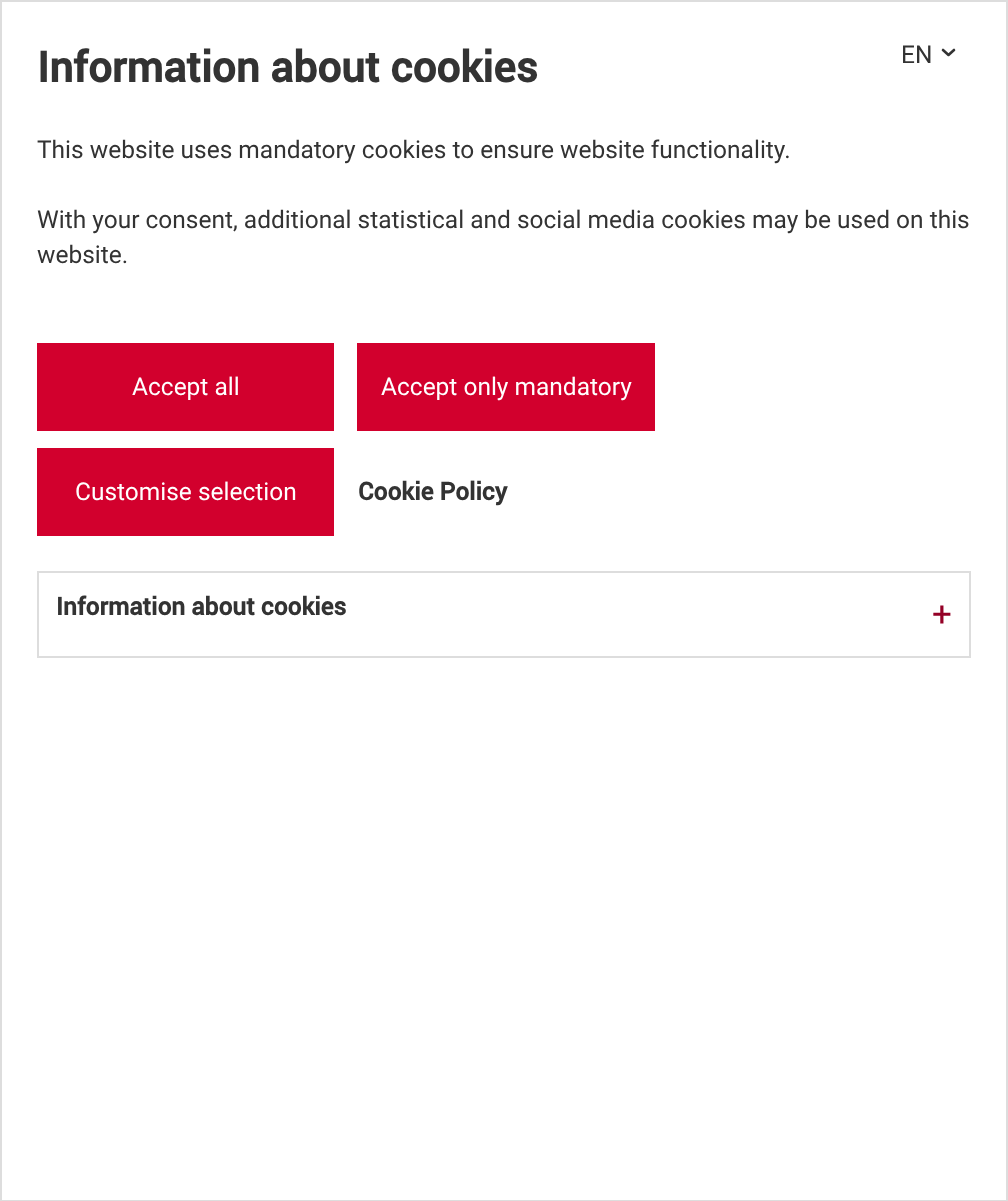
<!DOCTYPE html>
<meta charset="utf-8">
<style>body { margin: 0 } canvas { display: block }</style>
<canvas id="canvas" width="1008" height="1201"></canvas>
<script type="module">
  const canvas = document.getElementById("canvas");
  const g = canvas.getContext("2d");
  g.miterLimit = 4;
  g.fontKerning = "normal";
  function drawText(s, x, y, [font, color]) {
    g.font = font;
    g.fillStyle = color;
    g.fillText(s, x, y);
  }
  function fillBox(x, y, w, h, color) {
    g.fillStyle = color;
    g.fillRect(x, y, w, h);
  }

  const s1 = ["bold 42.25px Roboto", "#333333"];
  const s2 = ["24.5px Roboto", "#333333"];
  const s3 = ["24.5px Roboto", "#FFFFFF"];
  const s4 = ["bold 24.5px Roboto", "#333333"];
  const s5 = ["35px Roboto", "#940026"];

  fillBox(0, 0, 1008, 1201, "#FFFFFF");
  g.strokeStyle = "#DDDDDD";
  g.lineWidth = 2;
  g.strokeRect(1, 1, 1006, 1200);
  drawText("Information about cookies", 37, 82, s1);
  drawText("EN", 901, 63, s2);
  g.beginPath();
  g.moveTo(943, 50);
  g.lineTo(948.5, 55);
  g.lineTo(954, 50);
  g.strokeStyle = "#333333";
  g.lineWidth = 2.6;
  g.lineCap = "round";
  g.lineJoin = "round";
  g.stroke();
  drawText("This website uses mandatory cookies to ensure website functionality.", 37, 158, s2);
  drawText("With your consent, additional statistical and social media cookies may be used on this", 37, 228, s2);
  drawText("website.", 37, 263, s2);
  fillBox(37, 343, 297, 88, "#D2002D");
  drawText("Accept all", 132, 395, s3);
  fillBox(357, 343, 298, 88, "#D2002D");
  drawText("Accept only mandatory", 381, 395, s3);
  fillBox(37, 448, 297, 88, "#D2002D");
  drawText("Customise selection", 75, 500, s3);
  drawText("Cookie Policy", 358, 500, s4);
  g.strokeStyle = "#DDDDDD";
  g.lineWidth = 2;
  g.lineJoin = "miter";
  g.strokeRect(38, 572, 932, 85);
  drawText("Information about cookies", 56, 615, s4);
  drawText("+", 932, 626, s5);
</script>
